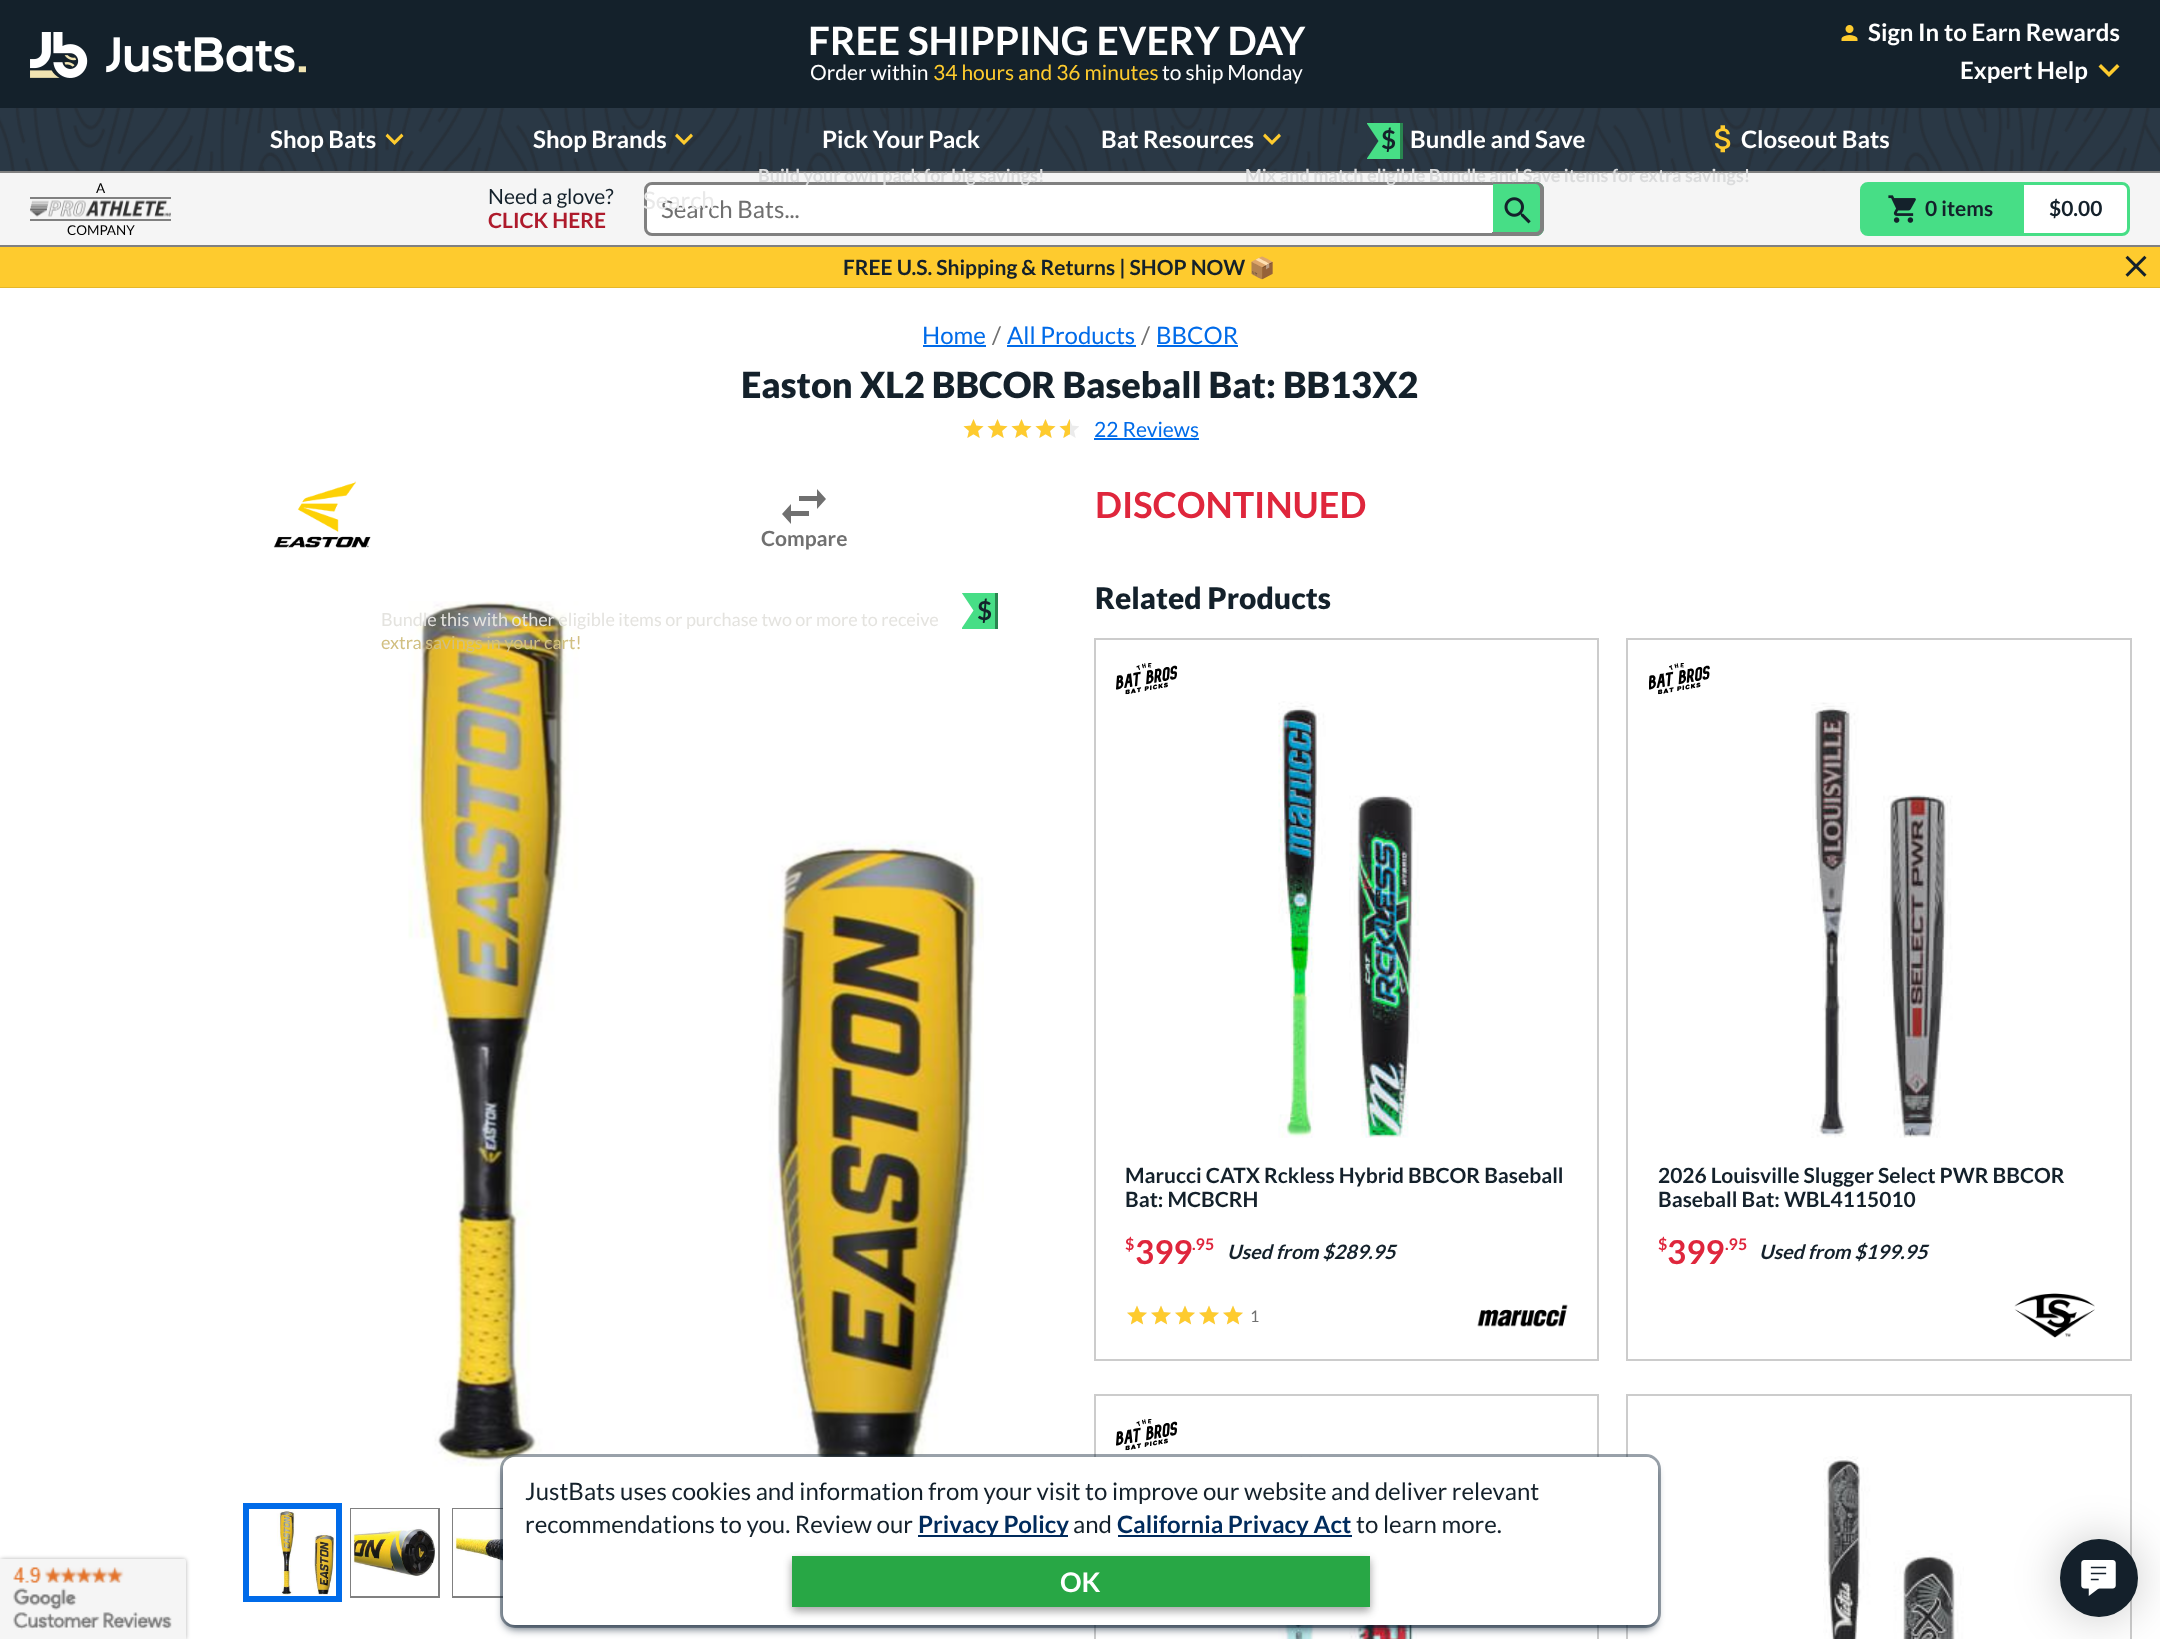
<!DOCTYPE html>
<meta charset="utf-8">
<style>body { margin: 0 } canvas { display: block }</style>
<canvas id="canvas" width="2160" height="1639"></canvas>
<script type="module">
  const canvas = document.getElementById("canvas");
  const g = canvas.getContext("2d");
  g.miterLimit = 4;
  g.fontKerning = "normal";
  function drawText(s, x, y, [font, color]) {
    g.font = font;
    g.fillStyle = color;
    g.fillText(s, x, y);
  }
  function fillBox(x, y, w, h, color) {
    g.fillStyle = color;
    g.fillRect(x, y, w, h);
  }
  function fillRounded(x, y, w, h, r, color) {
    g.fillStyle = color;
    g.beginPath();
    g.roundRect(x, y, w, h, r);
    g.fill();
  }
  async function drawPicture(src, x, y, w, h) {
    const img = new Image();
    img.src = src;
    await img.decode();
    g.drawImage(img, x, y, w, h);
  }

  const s1 = ["bold 39px Lato", "#FFFFFF"];
  const s2 = ["21px Lato", "#FFFFFF"];
  const s3 = ["21px Lato", "#FECB2E"];
  const s4 = ["bold 24px Lato", "#FFFFFF"];
  const s5 = ["bold 18px Lato", "#DADBDC"];
  const s6 = ["bold 26px Lato", "#14212B"];
  const s7 = ["13.5px Lato", "#000000"];
  const s8 = ["21px Lato", "#14212B"];
  const s9 = ["bold 21px Lato", "#AE1A2B"];
  const s10 = ["24px Lato", "#707070"];
  const s11 = ["24px Lato", "#E9E9E9"];
  const s12 = ["bold 21px Lato", "#14212B"];
  const s13 = ["bold 21px Noto Color Emoji", "#14212B"];
  const s14 = ["24px Lato", "#006BE9"];
  const s15 = ["900 36px Lato", "#14212B"];
  const s16 = ["21px Lato", "#006BE9"];
  const s17 = ["bold 21px Lato", "#707070"];
  const s18 = ["18px Lato", "#E4E3DF"];
  const s19 = ["18px Lato", "#D1BF81"];
  const s20 = ["bold 36px Lato", "#DF263C"];
  const s21 = ["900 30px Lato", "#14212B"];
  const s22 = ["bold 16px Lato", "#DF263C"];
  const s23 = ["bold 33px Lato", "#DF263C"];
  const s24 = ["italic bold 19.75px Lato", "#14212B"];
  const s25 = ["16px Lato", "#707070"];
  const s26 = ["24px Lato", "#14212B"];
  const s27 = ["bold 24px Lato", "#002B5C"];
  const s28 = ["bold 27px Lato", "#FFFFFF"];

  fillBox(0, 0, 2160, 1639, "#FFFFFF");
  fillBox(0, 0, 2160, 108, "#14212B");
  await drawPicture("pic1.png", 30, 32, 276, 46);
  drawText("FREE SHIPPING EVERY DAY", 808, 55, s1);
  drawText("Order within", 810, 80, s2);
  drawText("34 hours and 36 minutes", 933, 80, s3);
  drawText("to ship Monday", 1162, 80, s2);
  await drawPicture("pic2.png", 1841, 25, 17, 16);
  drawText("Sign In to Earn Rewards", 1868, 41, s4);
  drawText("Expert Help", 1960, 79, s4);
  g.fillStyle = "#FECB2E";
  g.beginPath();
  g.moveTo(2117, 64);
  g.lineTo(2109, 72);
  g.lineTo(2101, 64);
  g.lineTo(2098.5, 66.5);
  g.lineTo(2109, 77);
  g.lineTo(2119.5, 66.5);
  g.closePath();
  g.fill();
  fillBox(0, 108, 2160, 63, "#2A3845");
  await drawPicture("pic3.png", 0, 108, 2160, 63);
  fillBox(0, 171, 2160, 2, "#808080");
  drawText("Shop Bats", 270, 148, s4);
  g.fillStyle = "#FECB2E";
  g.beginPath();
  g.moveTo(401.5, 133.5);
  g.lineTo(394.5, 140.5);
  g.lineTo(387.5, 133.5);
  g.lineTo(385.5, 136);
  g.lineTo(394.5, 145);
  g.lineTo(403.5, 136);
  g.closePath();
  g.fill();
  drawText("Shop Brands", 533, 148, s4);
  g.fillStyle = "#FECB2E";
  g.beginPath();
  g.moveTo(691, 133.5);
  g.lineTo(684, 140.5);
  g.lineTo(677, 133.5);
  g.lineTo(675, 136);
  g.lineTo(684, 145);
  g.lineTo(693, 136);
  g.closePath();
  g.fill();
  drawText("Pick Your Pack", 822, 148, s4);
  fillBox(0, 173, 2160, 72, "#F5F5F5");
  g.fillStyle = "#FFFFFF";
  g.beginPath();
  g.roundRect(645.5, 183.5, 897, 51, 6.5);
  g.fill();
  g.strokeStyle = "#808080";
  g.lineWidth = 3;
  g.stroke();
  drawText("Build your own pack for big savings!", 758, 182, s5);
  drawText("Bat Resources", 1101, 148, s4);
  g.fillStyle = "#FECB2E";
  g.beginPath();
  g.moveTo(1279, 133.5);
  g.lineTo(1272, 140.5);
  g.lineTo(1265, 133.5);
  g.lineTo(1263, 136);
  g.lineTo(1272, 145);
  g.lineTo(1281, 136);
  g.closePath();
  g.fill();
  fillBox(1367, 123, 33, 36, "#47DE86");
  fillBox(1400, 123, 3, 36, "#298650");
  g.fillStyle = "#2A3845";
  g.beginPath();
  g.moveTo(1366.5, 159);
  g.lineTo(1366.5, 123);
  g.lineTo(1378.5, 141);
  g.closePath();
  g.fill();
  drawText("$", 1381, 149, s6);
  drawText("Bundle and Save", 1410, 148, s4);
  g.fillStyle = "#47DE86";
  g.beginPath();
  g.roundRect(1493, 182, 51, 54, [0, 8, 8, 0]);
  g.fill();
  g.fillStyle = "#808080";
  g.beginPath();
  g.moveTo(1492, 182);
  g.lineTo(1536, 182);
  g.bezierCurveTo(1540, 182, 1544, 185, 1544, 189);
  g.lineTo(1544, 228);
  g.bezierCurveTo(1544, 232, 1540, 236, 1536, 236);
  g.lineTo(1492, 236);
  g.closePath();
  g.moveTo(1492, 184);
  g.lineTo(1536, 184);
  g.bezierCurveTo(1538, 184, 1540, 187, 1540, 189);
  g.lineTo(1540, 228);
  g.bezierCurveTo(1540, 230, 1538, 232, 1536, 232);
  g.lineTo(1492, 232);
  g.closePath();
  g.fill("evenodd");
  drawText("Mix and match eligible Bundle and Save items for extra savings!", 1245, 182, s5);
  await drawPicture("pic4.png", 1715, 125, 16, 28);
  drawText("Closeout Bats", 1741, 148, s4);
  fillBox(0, 245, 2160, 2, "#808080");
  drawText("A", 96, 193, s7);
  fillBox(30, 197, 141, 2, "#808080");
  fillBox(30, 219, 141, 2, "#808080");
  await drawPicture("pic5.png", 30, 200, 141, 17);
  drawText("COMPANY", 67, 235, s7);
  drawText("Need a glove?", 488, 204, s8);
  drawText("CLICK HERE", 488, 228, s9);
  drawText("Search Bats...", 661, 218, s10);
  drawText("Search", 643, 209, s11);
  await drawPicture("pic6.png", 1504, 197, 27, 27);
  g.fillStyle = "#47DE86";
  g.beginPath();
  g.roundRect(1861.5, 183.5, 158, 51, [6.5, 0, 0, 6.5]);
  g.fill();
  g.strokeStyle = "#47DE86";
  g.stroke();
  await drawPicture("pic7.png", 1888, 195, 28, 28);
  drawText("0 items", 1925, 216, s12);
  g.fillStyle = "#FFFFFF";
  g.beginPath();
  g.roundRect(2022.5, 183.5, 106, 51, [0, 6.5, 6.5, 0]);
  g.fill();
  g.stroke();
  drawText("$0.00", 2049, 216, s12);
  fillBox(0, 247, 2160, 40, "#FECB2E");
  drawText("FREE U.S. Shipping & Returns | SHOP NOW", 843, 275, s12);
  drawText("📦", 1249, 275, s13);
  await drawPicture("pic8.png", 2125, 255, 22, 22);
  fillBox(0, 287, 2160, 1, "#E5B729");
  drawText("Home", 922, 344, s14);
  fillBox(923, 345, 63, 2, "#006BE9");
  drawText("/", 992, 344, s10);
  drawText("All Products", 1007, 344, s14);
  fillBox(1007, 345, 129, 2, "#006BE9");
  drawText("/", 1141, 344, s10);
  drawText("BBCOR", 1156, 344, s14);
  fillBox(1157, 345, 81, 2, "#006BE9");
  drawText("Easton XL2 BBCOR Baseball Bat: BB13X2", 741, 398, s15);
  await drawPicture("pic10.png", 964, 419, 115, 19);
  await drawPicture("pic9.png", 963, 419, 107, 19);
  drawText("22 Reviews", 1094, 437, s16);
  fillBox(1094, 438, 105, 2, "#006BE9");
  await drawPicture("pic11.png", 273, 481, 98, 67);
  g.fillStyle = "#707070";
  g.beginPath();
  g.moveTo(791, 504);
  g.lineTo(782, 514);
  g.lineTo(791, 524);
  g.lineTo(791, 516);
  g.lineTo(809, 516);
  g.lineTo(809, 511);
  g.lineTo(791, 511);
  g.closePath();
  g.moveTo(826, 499);
  g.lineTo(817, 489);
  g.lineTo(817, 496);
  g.lineTo(799, 496);
  g.lineTo(799, 501);
  g.lineTo(817, 501);
  g.lineTo(817, 509);
  g.closePath();
  g.fill();
  drawText("Compare", 761, 546, s17);
  await drawPicture("pic12.png", 408, 601, 576, 866);
  drawText("Bundle this with other eligible items or purchase two or more to receive", 381, 626, s18);
  drawText("extra savings in your cart!", 381, 649, s19);
  fillBox(962, 593, 33, 36, "#47DE86");
  fillBox(995, 593, 3, 36, "#298650");
  g.fillStyle = "#FFFFFF";
  g.beginPath();
  g.moveTo(961.5, 628.5);
  g.lineTo(961.5, 592.5);
  g.lineTo(973.5, 610.5);
  g.closePath();
  g.fill();
  drawText("$", 977, 620, s6);
  g.strokeStyle = "#006BE9";
  g.lineWidth = 2;
  g.strokeRect(249, 1509, 88, 88);
  await drawPicture("pic13.png", 249, 1509, 87, 87);
  g.lineWidth = 5;
  g.strokeRect(245.5, 1505.5, 94, 94);
  g.strokeStyle = "#808080";
  g.lineWidth = 2;
  g.strokeRect(351, 1509, 88, 88);
  await drawPicture("pic14.png", 351, 1509, 87, 87);
  g.strokeRect(453, 1509, 88, 88);
  await drawPicture("pic15.png", 453, 1509, 50, 87);
  drawText("DISCONTINUED", 1095, 518, s20);
  drawText("Related Products", 1095, 609, s21);
  await drawPicture("pic20.png", 1477, 1304, 91, 23);
  g.strokeStyle = "#CCCCCC";
  g.strokeRect(1095, 639, 503, 721);
  await drawPicture("pic16.png", 1116, 663, 62, 32);
  await drawPicture("pic17.png", 1278, 701, 142, 437);
  drawText("Marucci CATX Rckless Hybrid BBCOR Baseball", 1125, 1183, s12);
  drawText("Bat: MCBCRH", 1125, 1207, s12);
  drawText("$", 1125, 1250, s22);
  drawText("399", 1135, 1264, s23);
  drawText(".95", 1192, 1250, s22);
  drawText("Used from $289.95", 1227, 1259, s24);
  await drawPicture("pic19.png", 1127, 1306, 116, 18);
  await drawPicture("pic18.png", 1127, 1305, 116, 20);
  drawText("1", 1250, 1322, s25);
  await drawPicture("pic23.png", 2014, 1293, 81, 45);
  g.strokeRect(1627, 639, 504, 721);
  await drawPicture("pic21.png", 1649, 663, 61, 32);
  await drawPicture("pic22.png", 1811, 702, 142, 436);
  drawText("2026 Louisville Slugger Select PWR BBCOR", 1658, 1183, s12);
  drawText("Baseball Bat: WBL4115010", 1658, 1207, s12);
  drawText("$", 1658, 1250, s22);
  drawText("399", 1667, 1264, s23);
  drawText(".95", 1725, 1250, s22);
  drawText("Used from $199.95", 1759, 1259, s24);
  g.strokeRect(1095, 1395, 503, 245);
  await drawPicture("pic16.png", 1116, 1419, 62, 32);
  await drawPicture("pic24.png", 1278, 1456, 142, 183);
  g.strokeRect(1627, 1395, 504, 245);
  await drawPicture("pic25.png", 1823, 1456, 141, 183);
  g.fillStyle = "rgba(0, 0, 0, 0.3)";
  g.filter = "blur(2px)";
  g.beginPath();
  g.roundRect(0, 1559, 186, 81, 3);
  g.fill();
  g.filter = "none";
  await drawPicture("pic26.png", 0, 1559, 186, 80);
  g.fillStyle = "rgba(6, 24, 44, 0.65)";
  g.filter = "blur(4.5px)";
  g.beginPath();
  g.roundRect(504, 1464, 1152, 165, 11);
  g.fill();
  g.filter = "none";
  g.beginPath();
  g.roundRect(501.5, 1455.5, 1158, 171, 13.5);
  g.strokeStyle = "rgba(6, 24, 44, 0.4)";
  g.lineWidth = 3;
  g.stroke();
  fillRounded(503, 1457, 1155, 168, 12, "#FFFFFF");
  drawText("JustBats uses cookies and information from your visit to improve our website and deliver relevant", 525, 1500, s26);
  drawText("recommendations to you. Review our", 525, 1533, s26);
  fillBox(918, 1535, 150, 2, "#002B5C");
  drawText("Privacy Policy", 918, 1533, s27);
  drawText("and", 1073, 1533, s26);
  fillBox(1118, 1535, 234, 2, "#002B5C");
  drawText("California Privacy Act", 1117, 1533, s27);
  drawText("to learn more.", 1356, 1533, s26);
  g.fillStyle = "rgba(0, 0, 0, 0.23)";
  g.filter = "blur(4.5px)";
  g.beginPath();
  g.rect(792, 1560, 578, 51);
  g.fill();
  g.filter = "none";
  g.fillStyle = "rgba(0, 0, 0, 0.16)";
  g.filter = "blur(4.5px)";
  g.beginPath();
  g.rect(792, 1560, 578, 51);
  g.fill();
  g.filter = "none";
  fillBox(792, 1556, 578, 51, "#28A745");
  drawText("OK", 1060, 1592, s28);
  g.fillStyle = "rgba(0, 0, 0, 0.2)";
  g.filter = "blur(22.5px)";
  g.beginPath();
  g.roundRect(2058, 1538, 81, 81, 40.5);
  g.fill();
  g.filter = "none";
  g.fillStyle = "#14202B";
  g.beginPath();
  g.arc(2099, 1578, 38, 0, Math.PI * 2);
  g.fill();
  g.strokeStyle = "#14212B";
  g.lineWidth = 2;
  g.stroke();
  await drawPicture("pic27.png", 2081, 1560, 35, 36);
</script>
